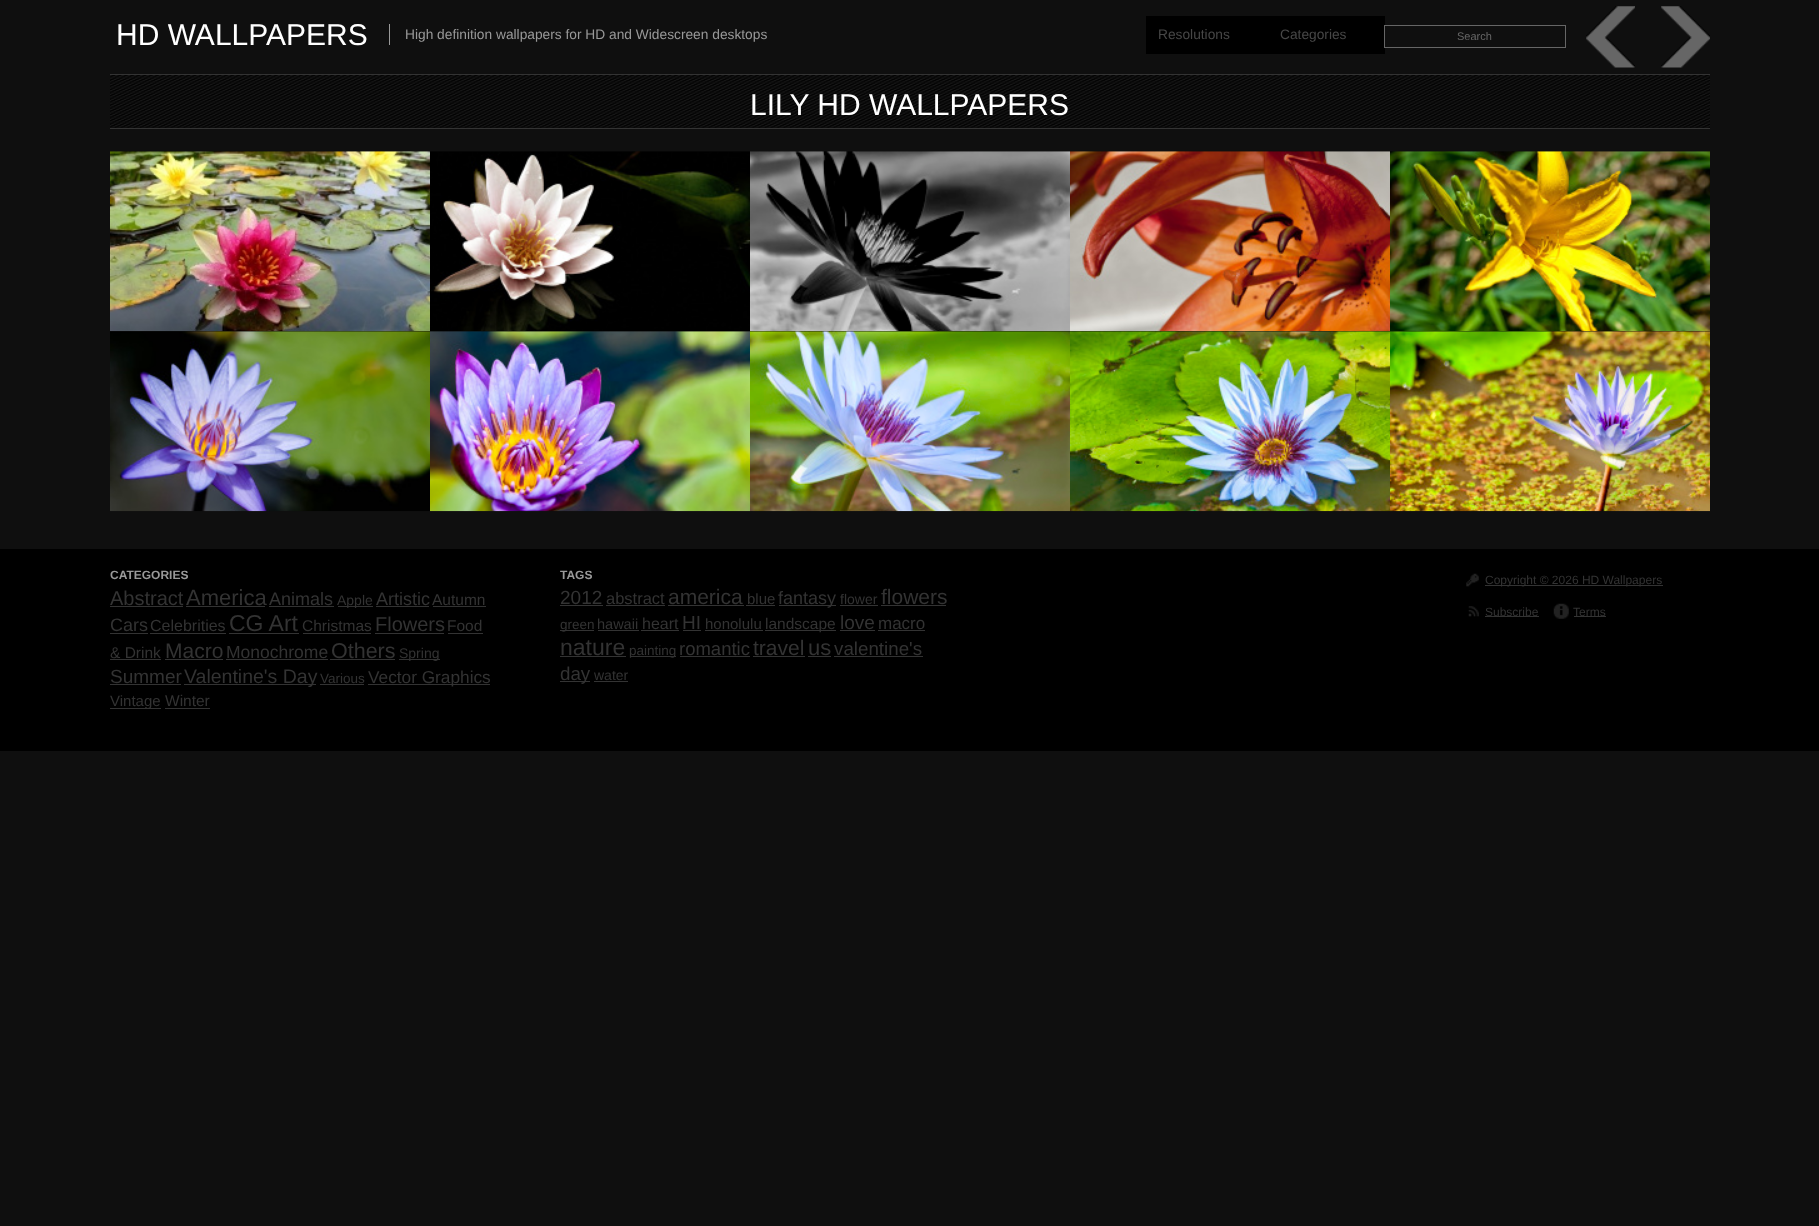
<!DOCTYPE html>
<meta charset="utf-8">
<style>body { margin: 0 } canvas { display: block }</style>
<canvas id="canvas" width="1819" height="1226"></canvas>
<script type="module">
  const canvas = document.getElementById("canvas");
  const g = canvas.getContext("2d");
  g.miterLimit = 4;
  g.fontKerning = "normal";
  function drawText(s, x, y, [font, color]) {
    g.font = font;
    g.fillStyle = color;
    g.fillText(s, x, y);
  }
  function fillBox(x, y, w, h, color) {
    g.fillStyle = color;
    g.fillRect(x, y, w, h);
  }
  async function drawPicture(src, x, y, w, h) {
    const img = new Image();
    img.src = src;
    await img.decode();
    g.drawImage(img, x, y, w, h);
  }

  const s1 = ["30px Liberation Sans", "#FFFFFF"];
  const s2 = ["13.75px Liberation Sans", "#999999"];
  const s3 = ["13.75px Liberation Sans", "#474747"];
  const s4 = ["11px Liberation Sans", "#666666"];
  const s5 = ["bold 12px Liberation Sans", "#999999"];
  const s6 = ["20px Liberation Sans", "#333333"];
  const s7 = ["22px Liberation Sans", "#333333"];
  const s8 = ["18px Liberation Sans", "#333333"];
  const s9 = ["14px Liberation Sans", "#333333"];
  const s10 = ["15.5px Liberation Sans", "#333333"];
  const s11 = ["16px Liberation Sans", "#333333"];
  const s12 = ["23px Liberation Sans", "#333333"];
  const s13 = ["21px Liberation Sans", "#333333"];
  const s14 = ["17.5px Liberation Sans", "#333333"];
  const s15 = ["21.5px Liberation Sans", "#333333"];
  const s16 = ["19px Liberation Sans", "#333333"];
  const s17 = ["19.5px Liberation Sans", "#333333"];
  const s18 = ["13.5px Liberation Sans", "#333333"];
  const s19 = ["17.25px Liberation Sans", "#333333"];
  const s20 = ["15px Liberation Sans", "#333333"];
  const s21 = ["16.5px Liberation Sans", "#333333"];
  const s22 = ["14.5px Liberation Sans", "#333333"];
  const s23 = ["17px Liberation Sans", "#333333"];
  const s24 = ["18.5px Liberation Sans", "#333333"];
  const s25 = ["18.75px Liberation Sans", "#333333"];
  const s26 = ["12px Liberation Sans", "#333333"];

  fillBox(0, 0, 1819, 1226, "#0F0F0F");
  drawText("HD WALLPAPERS", 116, 45, s1);
  fillBox(389, 24, 1, 21, "#999999");
  drawText("High definition wallpapers for HD and Widescreen desktops", 405, 39, s2);
  fillBox(1146, 16, 239, 38, "#000000");
  drawText("Resolutions", 1158, 39, s3);
  drawText("Categories", 1280, 39, s3);
  g.strokeStyle = "#666666";
  g.strokeRect(1384.5, 25.5, 181, 22);
  drawText("Search", 1457, 40, s4);
  await drawPicture("pic1.png", 1586, 6, 49, 62);
  await drawPicture("pic2.png", 1661, 6, 49, 62);
  await drawPicture("pic3.png", 110, 75, 1600, 53);
  fillBox(110, 74, 1600, 1, "#333333");
  fillBox(110, 128, 1600, 1, "#333333");
  drawText("LILY HD WALLPAPERS", 750, 115, s1);
  await drawPicture("pic4.png", 110, 151, 320, 181);
  await drawPicture("pic5.png", 430, 151, 320, 180);
  await drawPicture("pic6.png", 750, 151, 320, 181);
  await drawPicture("pic7.png", 1070, 151, 320, 181);
  await drawPicture("pic8.png", 1390, 151, 320, 181);
  await drawPicture("pic9.png", 110, 331, 320, 181);
  await drawPicture("pic10.png", 430, 331, 320, 181);
  await drawPicture("pic11.png", 750, 331, 320, 181);
  await drawPicture("pic12.png", 1070, 331, 320, 181);
  await drawPicture("pic13.png", 1390, 331, 320, 181);
  fillBox(0, 549, 1819, 202, "#000000");
  drawText("CATEGORIES", 110, 579, s5);
  drawText("Abstract", 110, 605, s6);
  fillBox(110, 606, 73, 1, "#333333");
  drawText("America", 186, 605, s7);
  fillBox(186, 606, 79, 1, "#333333");
  drawText("Animals", 269, 605, s8);
  fillBox(269, 606, 65, 1, "#333333");
  fillBox(338, 606, 35, 1, "#333333");
  drawText("Apple", 337, 605, s9);
  drawText("Artistic", 376, 605, s8);
  fillBox(376, 606, 53, 1, "#333333");
  drawText("Autumn", 432, 605, s10);
  fillBox(433, 606, 53, 1, "#333333");
  drawText("Cars", 110, 631, s8);
  fillBox(110, 633, 38, 1, "#333333");
  drawText("Celebrities", 150, 631, s11);
  fillBox(150, 633, 76, 1, "#333333");
  drawText("CG Art", 229, 631, s12);
  fillBox(229, 633, 70, 1, "#333333");
  drawText("Christmas", 302, 631, s10);
  fillBox(303, 633, 68, 1, "#333333");
  drawText("Flowers", 375, 631, s6);
  fillBox(375, 633, 69, 1, "#333333");
  drawText("Food", 447, 631, s10);
  fillBox(448, 633, 35, 1, "#333333");
  drawText("& Drink", 110, 658, s10);
  fillBox(110, 659, 51, 1, "#333333");
  drawText("Macro", 165, 658, s13);
  fillBox(165, 659, 58, 1, "#333333");
  drawText("Monochrome", 226, 658, s14);
  fillBox(226, 659, 102, 1, "#333333");
  drawText("Others", 331, 658, s15);
  fillBox(330, 659, 65, 1, "#333333");
  fillBox(399, 659, 41, 1, "#333333");
  drawText("Spring", 399, 658, s9);
  drawText("Summer", 110, 683, s16);
  fillBox(110, 684, 71, 1, "#333333");
  fillBox(184, 684, 132, 1, "#333333");
  drawText("Valentine's Day", 184, 683, s17);
  drawText("Various", 320, 683, s18);
  fillBox(320, 684, 44, 1, "#333333");
  fillBox(368, 684, 122, 1, "#333333");
  drawText("Vector Graphics", 368, 683, s19);
  fillBox(110, 708, 51, 1, "#333333");
  drawText("Vintage", 110, 706, s20);
  drawText("Winter", 165, 706, s10);
  fillBox(165, 708, 45, 1, "#333333");
  drawText("TAGS", 560, 579, s5);
  drawText("2012", 560, 604, s16);
  fillBox(560, 605, 43, 1, "#333333");
  drawText("abstract", 606, 604, s21);
  fillBox(606, 605, 59, 1, "#333333");
  drawText("america", 668, 604, s13);
  fillBox(668, 605, 76, 1, "#333333");
  drawText("blue", 747, 604, s20);
  fillBox(746, 605, 29, 1, "#333333");
  fillBox(779, 605, 57, 1, "#333333");
  drawText("fantasy", 778, 604, s8);
  drawText("flower", 840, 604, s9);
  fillBox(840, 605, 38, 1, "#333333");
  drawText("flowers", 881, 604, s13);
  fillBox(881, 605, 65, 1, "#333333");
  fillBox(560, 630, 34, 1, "#333333");
  drawText("green", 560, 629, s18);
  drawText("hawaii", 597, 629, s22);
  fillBox(598, 630, 41, 1, "#333333");
  drawText("heart", 642, 629, s11);
  fillBox(641, 630, 38, 1, "#333333");
  drawText("HI", 682, 629, s16);
  fillBox(683, 630, 18, 1, "#333333");
  drawText("honolulu", 705, 629, s20);
  fillBox(705, 630, 58, 1, "#333333");
  fillBox(765, 630, 71, 1, "#333333");
  drawText("landscape", 765, 629, s10);
  drawText("love", 840, 629, s16);
  fillBox(840, 630, 35, 1, "#333333");
  drawText("macro", 878, 629, s23);
  fillBox(878, 630, 47, 1, "#333333");
  drawText("nature", 560, 655, s12);
  fillBox(560, 656, 66, 1, "#333333");
  fillBox(630, 656, 46, 1, "#333333");
  drawText("painting", 629, 655, s18);
  drawText("romantic", 679, 655, s24);
  fillBox(680, 656, 70, 1, "#333333");
  drawText("travel", 753, 655, s13);
  fillBox(753, 656, 52, 1, "#333333");
  drawText("us", 808, 655, s7);
  fillBox(808, 656, 23, 1, "#333333");
  drawText("valentine's", 834, 655, s25);
  fillBox(834, 656, 89, 1, "#333333");
  fillBox(560, 681, 30, 1, "#333333");
  drawText("day", 560, 680, s25);
  drawText("water", 594, 680, s9);
  fillBox(594, 681, 34, 1, "#333333");
  await drawPicture("pic14.png", 1466, 573, 13, 14);
  fillBox(1485, 585, 178, 1, "#333333");
  drawText("Copyright © 2026 HD Wallpapers", 1485, 584, s26);
  await drawPicture("pic15.png", 1468, 606, 11, 11);
  fillBox(1485, 616, 54, 1, "#333333");
  drawText("Subscribe", 1485, 616, s26);
  await drawPicture("pic16.png", 1553, 603, 16, 16);
  fillBox(1574, 616, 32, 1, "#333333");
  drawText("Terms", 1573, 616, s26);
</script>
